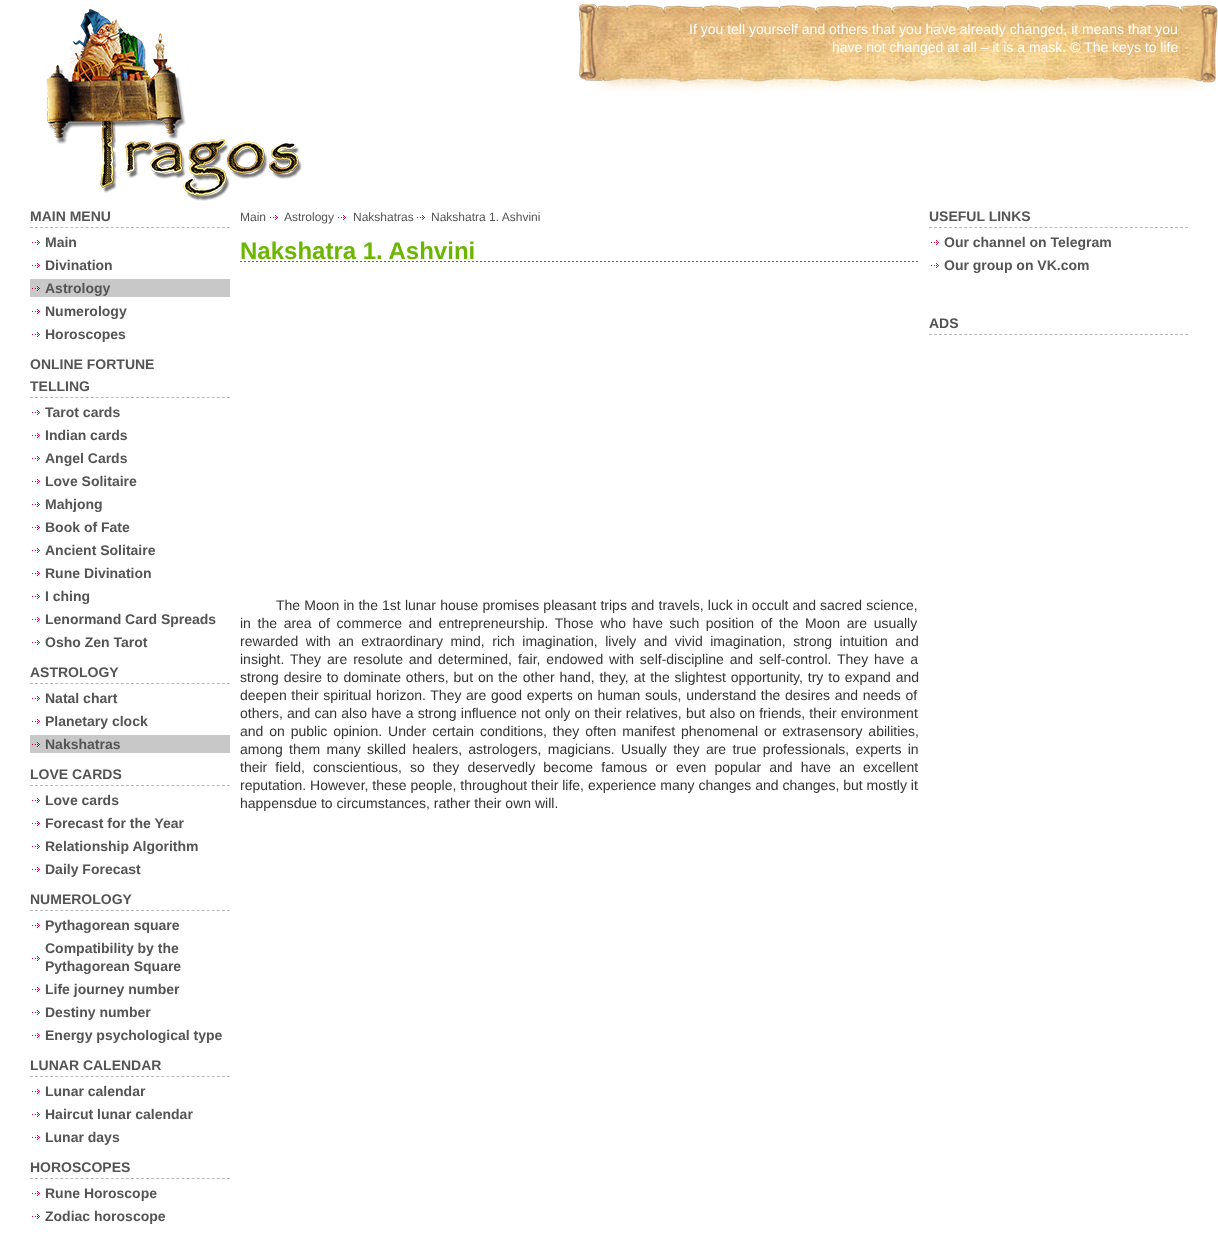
<!DOCTYPE html>
<meta charset="utf-8">
<style>body { margin: 0 } canvas { display: block }</style>
<canvas id="canvas" width="1218" height="1237"></canvas>
<script type="module">
  const canvas = document.getElementById("canvas");
  const g = canvas.getContext("2d");
  g.miterLimit = 4;
  g.fontKerning = "normal";
  function drawText(s, x, y, [font, color]) {
    g.font = font;
    g.fillStyle = color;
    g.fillText(s, x, y);
  }
  function fillBox(x, y, w, h, color) {
    g.fillStyle = color;
    g.fillRect(x, y, w, h);
  }
  async function drawPicture(src, x, y, w, h) {
    const img = new Image();
    img.src = src;
    await img.decode();
    g.drawImage(img, x, y, w, h);
  }

  const s1 = ["14px Liberation Sans", "#FFFFFF"];
  const s2 = ["bold 14px Liberation Sans", "#545454"];
  const s3 = ["12px Liberation Sans", "#545454"];
  const s4 = ["bold 24px Liberation Sans", "#6BB600"];
  const s5 = ["14px Liberation Sans", "#333333"];

  fillBox(0, 0, 1218, 1237, "#FFFFFF");
  await drawPicture("pic1.png", 44, 9, 258, 192);
  await drawPicture("pic2.png", 578, 4, 640, 88);
  drawText("If you tell yourself and others that you have already changed, it means that you", 689, 34, s1);
  drawText("have not changed at all – it is a mask. © The keys to life", 832, 52, s1);
  g.beginPath();
  g.moveTo(30, 227.5);
  g.lineTo(230, 227.5);
  g.strokeStyle = "#BDB9B9";
  g.setLineDash([3, 2.05]);
  g.stroke();
  drawText("MAIN MENU", 30, 221, s2);
  await drawPicture("pic3.png", 32, 240, 8, 5);
  drawText("Main", 45, 247, s2);
  await drawPicture("pic3.png", 32, 263, 8, 5);
  drawText("Divination", 45, 270, s2);
  fillBox(30, 279, 200, 18, "#C8C8C8");
  await drawPicture("pic4.png", 32, 286, 8, 5);
  drawText("Astrology", 45, 293, s2);
  await drawPicture("pic3.png", 32, 309, 8, 5);
  drawText("Numerology", 45, 316, s2);
  await drawPicture("pic3.png", 32, 332, 8, 5);
  drawText("Horoscopes", 45, 339, s2);
  g.beginPath();
  g.moveTo(30, 397.5);
  g.lineTo(230, 397.5);
  g.stroke();
  drawText("ONLINE FORTUNE", 30, 369, s2);
  drawText("TELLING", 30, 391, s2);
  await drawPicture("pic3.png", 32, 410, 8, 5);
  drawText("Tarot cards", 45, 417, s2);
  await drawPicture("pic3.png", 32, 433, 8, 5);
  drawText("Indian cards", 45, 440, s2);
  await drawPicture("pic3.png", 32, 456, 8, 5);
  drawText("Angel Cards", 45, 463, s2);
  await drawPicture("pic3.png", 32, 479, 8, 5);
  drawText("Love Solitaire", 45, 486, s2);
  await drawPicture("pic3.png", 32, 502, 8, 5);
  drawText("Mahjong", 45, 509, s2);
  await drawPicture("pic3.png", 32, 525, 8, 5);
  drawText("Book of Fate", 45, 532, s2);
  await drawPicture("pic3.png", 32, 548, 8, 5);
  drawText("Ancient Solitaire", 45, 555, s2);
  await drawPicture("pic3.png", 32, 571, 8, 5);
  drawText("Rune Divination", 45, 578, s2);
  await drawPicture("pic3.png", 32, 594, 8, 5);
  drawText("I ching", 45, 601, s2);
  await drawPicture("pic3.png", 32, 617, 8, 5);
  drawText("Lenormand Card Spreads", 45, 624, s2);
  await drawPicture("pic3.png", 32, 640, 8, 5);
  drawText("Osho Zen Tarot", 45, 647, s2);
  g.beginPath();
  g.moveTo(30, 683.5);
  g.lineTo(230, 683.5);
  g.stroke();
  drawText("ASTROLOGY", 30, 677, s2);
  await drawPicture("pic3.png", 32, 696, 8, 5);
  drawText("Natal chart", 45, 703, s2);
  await drawPicture("pic3.png", 32, 719, 8, 5);
  drawText("Planetary clock", 45, 726, s2);
  fillBox(30, 735, 200, 18, "#C8C8C8");
  await drawPicture("pic4.png", 32, 742, 8, 5);
  drawText("Nakshatras", 45, 749, s2);
  g.beginPath();
  g.moveTo(30, 785.5);
  g.lineTo(230, 785.5);
  g.stroke();
  drawText("LOVE CARDS", 30, 779, s2);
  await drawPicture("pic3.png", 32, 798, 8, 5);
  drawText("Love cards", 45, 805, s2);
  await drawPicture("pic3.png", 32, 821, 8, 5);
  drawText("Forecast for the Year", 45, 828, s2);
  await drawPicture("pic3.png", 32, 844, 8, 5);
  drawText("Relationship Algorithm", 45, 851, s2);
  await drawPicture("pic3.png", 32, 867, 8, 5);
  drawText("Daily Forecast", 45, 874, s2);
  g.beginPath();
  g.moveTo(30, 910.5);
  g.lineTo(230, 910.5);
  g.stroke();
  drawText("NUMEROLOGY", 30, 904, s2);
  await drawPicture("pic3.png", 32, 923, 8, 5);
  drawText("Pythagorean square", 45, 930, s2);
  await drawPicture("pic3.png", 32, 956, 8, 5);
  drawText("Compatibility by the", 45, 953, s2);
  drawText("Pythagorean Square", 45, 971, s2);
  await drawPicture("pic3.png", 32, 987, 8, 5);
  drawText("Life journey number", 45, 994, s2);
  await drawPicture("pic3.png", 32, 1010, 8, 5);
  drawText("Destiny number", 45, 1017, s2);
  await drawPicture("pic3.png", 32, 1033, 8, 5);
  drawText("Energy psychological type", 45, 1040, s2);
  g.beginPath();
  g.moveTo(30, 1076.5);
  g.lineTo(230, 1076.5);
  g.stroke();
  drawText("LUNAR CALENDAR", 30, 1070, s2);
  await drawPicture("pic3.png", 32, 1089, 8, 5);
  drawText("Lunar calendar", 45, 1096, s2);
  await drawPicture("pic3.png", 32, 1112, 8, 5);
  drawText("Haircut lunar calendar", 45, 1119, s2);
  await drawPicture("pic3.png", 32, 1135, 8, 5);
  drawText("Lunar days", 45, 1142, s2);
  g.beginPath();
  g.moveTo(30, 1178.5);
  g.lineTo(230, 1178.5);
  g.stroke();
  drawText("HOROSCOPES", 30, 1172, s2);
  await drawPicture("pic3.png", 32, 1191, 8, 5);
  drawText("Rune Horoscope", 45, 1198, s2);
  await drawPicture("pic3.png", 32, 1214, 8, 5);
  drawText("Zodiac horoscope", 45, 1221, s2);
  drawText("Main", 240, 221, s3);
  await drawPicture("pic3.png", 270, 215, 8, 5);
  drawText("Astrology", 284, 221, s3);
  await drawPicture("pic3.png", 338, 215, 8, 5);
  drawText("Nakshatras", 353, 221, s3);
  await drawPicture("pic3.png", 417, 215, 8, 5);
  drawText("Nakshatra 1. Ashvini", 431, 221, s3);
  await drawPicture("pic5.png", 240, 261, 678, 1);
  drawText("Nakshatra 1. Ashvini", 240, 259, s4);
  g.wordSpacing = "0.25px";
  drawText("The Moon in the 1st lunar house promises pleasant trips and travels, luck in occult and sacred science,", 276, 610, s5);
  g.wordSpacing = "2.75px";
  drawText("in the area of commerce and entrepreneurship. Those who have such position of the Moon are usually", 240, 628, s5);
  g.wordSpacing = "3.6px";
  drawText("rewarded with an extraordinary mind, rich imagination, lively and vivid imagination, strong intuition and", 240, 646, s5);
  g.wordSpacing = "2px";
  drawText("insight. They are resolute and determined, fair, endowed with self-discipline and self-control. They have a", 240, 664, s5);
  g.wordSpacing = "1px";
  drawText("strong desire to dominate others, but on the other hand, they, at the slightest opportunity, try to expand and", 240, 682, s5);
  g.wordSpacing = "0.75px";
  drawText("deepen their spiritual horizon. They are good experts on human souls, understand the desires and needs of", 240, 700, s5);
  g.wordSpacing = "0.3px";
  drawText("others, and can also have a strong influence not only on their relatives, but also on friends, their environment", 240, 718, s5);
  g.wordSpacing = "2px";
  drawText("and on public opinion. Under certain conditions, they often manifest phenomenal or extrasensory abilities,", 240, 736, s5);
  g.wordSpacing = "2.4px";
  drawText("among them many skilled healers, astrologers, magicians. Usually they are true professionals, experts in", 240, 754, s5);
  g.wordSpacing = "4.25px";
  drawText("their field, conscientious, so they deservedly become famous or even popular and have an excellent", 240, 772, s5);
  g.wordSpacing = "0px";
  drawText("reputation. However, these people, throughout their life, experience many changes and changes, but mostly it", 240, 790, s5);
  drawText("happensdue to circumstances, rather their own will.", 240, 808, s5);
  g.beginPath();
  g.moveTo(929, 227.5);
  g.lineTo(1188, 227.5);
  g.setLineDash([3, 2.02]);
  g.stroke();
  drawText("USEFUL LINKS", 929, 221, s2);
  await drawPicture("pic3.png", 931, 240, 8, 5);
  drawText("Our channel on Telegram", 944, 247, s2);
  await drawPicture("pic3.png", 931, 263, 8, 5);
  drawText("Our group on VK.com", 944, 270, s2);
  g.beginPath();
  g.moveTo(929, 334.5);
  g.lineTo(1188, 334.5);
  g.stroke();
  drawText("ADS", 929, 328, s2);
</script>
